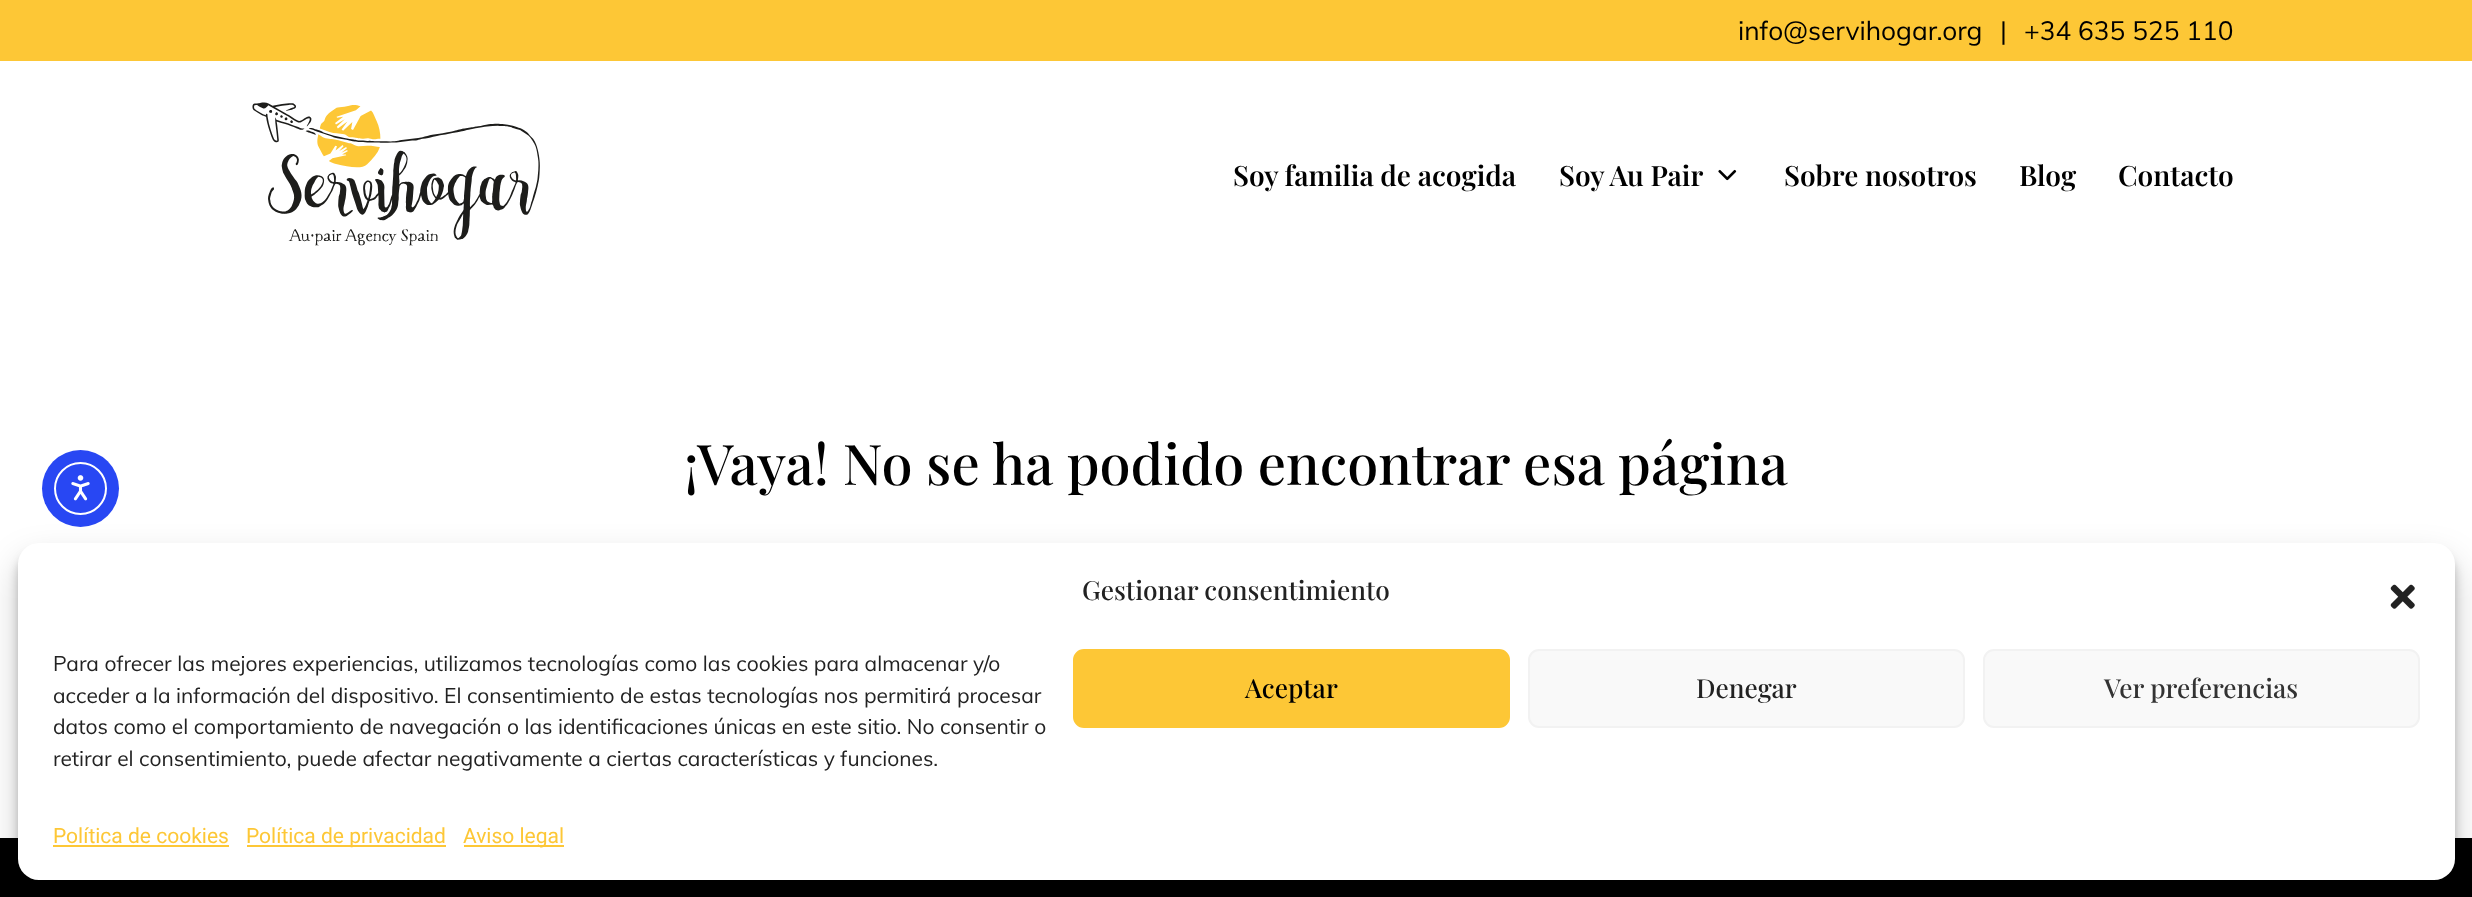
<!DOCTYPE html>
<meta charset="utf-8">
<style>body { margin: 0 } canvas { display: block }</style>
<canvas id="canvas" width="2472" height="897"></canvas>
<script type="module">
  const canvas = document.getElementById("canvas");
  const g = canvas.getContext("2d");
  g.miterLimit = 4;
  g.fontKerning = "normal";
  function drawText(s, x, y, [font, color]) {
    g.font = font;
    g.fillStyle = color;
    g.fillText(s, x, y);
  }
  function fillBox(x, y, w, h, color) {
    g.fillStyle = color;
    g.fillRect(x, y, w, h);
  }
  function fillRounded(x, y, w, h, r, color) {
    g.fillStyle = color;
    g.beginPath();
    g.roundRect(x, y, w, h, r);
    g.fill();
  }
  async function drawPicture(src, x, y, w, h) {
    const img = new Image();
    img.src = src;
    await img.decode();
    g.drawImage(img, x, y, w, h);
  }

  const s1 = ["26.25px Muli", "#000000"];
  const s2 = ["600 28px Playfair Display", "#000000"];
  const s3 = ["500 56px Playfair Display", "#000000"];
  const s4 = ["500 26.25px Playfair Display", "#222222"];
  const s5 = ["21px Muli", "#222222"];
  const s6 = ["500 26.25px Playfair Display", "#000000"];
  const s7 = ["500 26.25px Playfair Display", "#333333"];
  const s8 = ["21px Roboto", "#FDC736"];

  fillBox(0, 0, 2472, 897, "#FFFFFF");
  fillBox(0, 838, 2472, 59, "#000000");
  g.fillStyle = "rgba(0, 0, 0, 0.19)";
  g.filter = "blur(17.5px)";
  g.beginPath();
  g.roundRect(18, 560, 2437, 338, 21);
  g.fill();
  g.filter = "none";
  g.fillStyle = "#2847F3";
  g.beginPath();
  g.arc(80.5, 488.5, 38.5, 0, Math.PI * 2);
  g.fill();
  g.beginPath();
  g.arc(80.5, 488.5, 25.5, 0, Math.PI * 2);
  g.strokeStyle = "#FFFFFF";
  g.lineWidth = 2;
  g.stroke();
  await drawPicture("pic1.png", 71, 475, 19, 26);
  fillBox(0, 0, 2472, 61, "#FDC736");
  drawText("info@servihogar.org", 1738, 40, s1);
  drawText("|", 2000, 40, s1);
  drawText("+34 635 525 110", 2024, 40, s1);
  await drawPicture("pic2.png", 252, 102, 288, 144);
  drawText("Soy familia de acogida", 1233, 186, s2);
  drawText("Soy Au Pair", 1559, 186, s2);
  await drawPicture("pic3.png", 1718, 169, 19, 12);
  drawText("Sobre nosotros", 1784, 186, s2);
  drawText("Blog", 2019, 186, s2);
  drawText("Contacto", 2118, 186, s2);
  drawText("¡Vaya! No se ha podido encontrar esa página", 684, 485, s3);
  g.fillStyle = "rgba(0, 0, 0, 0.23)";
  g.filter = "blur(5px)";
  g.beginPath();
  g.roundRect(18, 553, 2437, 338, 21);
  g.fill();
  g.filter = "none";
  fillRounded(18, 543, 2437, 337, 21, "#FFFFFF");
  drawText("Gestionar consentimiento", 1082, 600, s4);
  await drawPicture("pic4.png", 2390, 584, 25, 25);
  drawText("Para ofrecer las mejores experiencias, utilizamos tecnologías como las cookies para almacenar y/o", 53, 671, s5);
  drawText("acceder a la información del dispositivo. El consentimiento de estas tecnologías nos permitirá procesar", 53, 703, s5);
  drawText("datos como el comportamiento de navegación o las identificaciones únicas en este sitio. No consentir o", 53, 734, s5);
  drawText("retirar el consentimiento, puede afectar negativamente a ciertas características y funciones.", 53, 766, s5);
  g.fillStyle = "#FDC736";
  g.beginPath();
  g.roundRect(1074, 650, 435, 77, 10);
  g.fill();
  g.strokeStyle = "#FDC736";
  g.stroke();
  drawText("Aceptar", 1245, 698, s6);
  g.fillStyle = "#F9F9F9";
  g.beginPath();
  g.roundRect(1529, 650, 435, 77, 10);
  g.fill();
  g.strokeStyle = "#F2F2F2";
  g.stroke();
  drawText("Denegar", 1696, 698, s4);
  g.fillStyle = "#F9F9F9";
  g.beginPath();
  g.roundRect(1984, 650, 435, 77, 10);
  g.fill();
  g.stroke();
  drawText("Ver preferencias", 2104, 698, s7);
  drawText("Política de cookies", 53, 843, s8);
  fillBox(53, 845, 176, 2, "#FDC736");
  fillBox(247, 845, 199, 2, "#FDC736");
  drawText("Política de privacidad", 246, 843, s8);
  fillBox(464, 845, 100, 2, "#FDC736");
  drawText("Aviso legal", 463, 843, s8);
</script>
